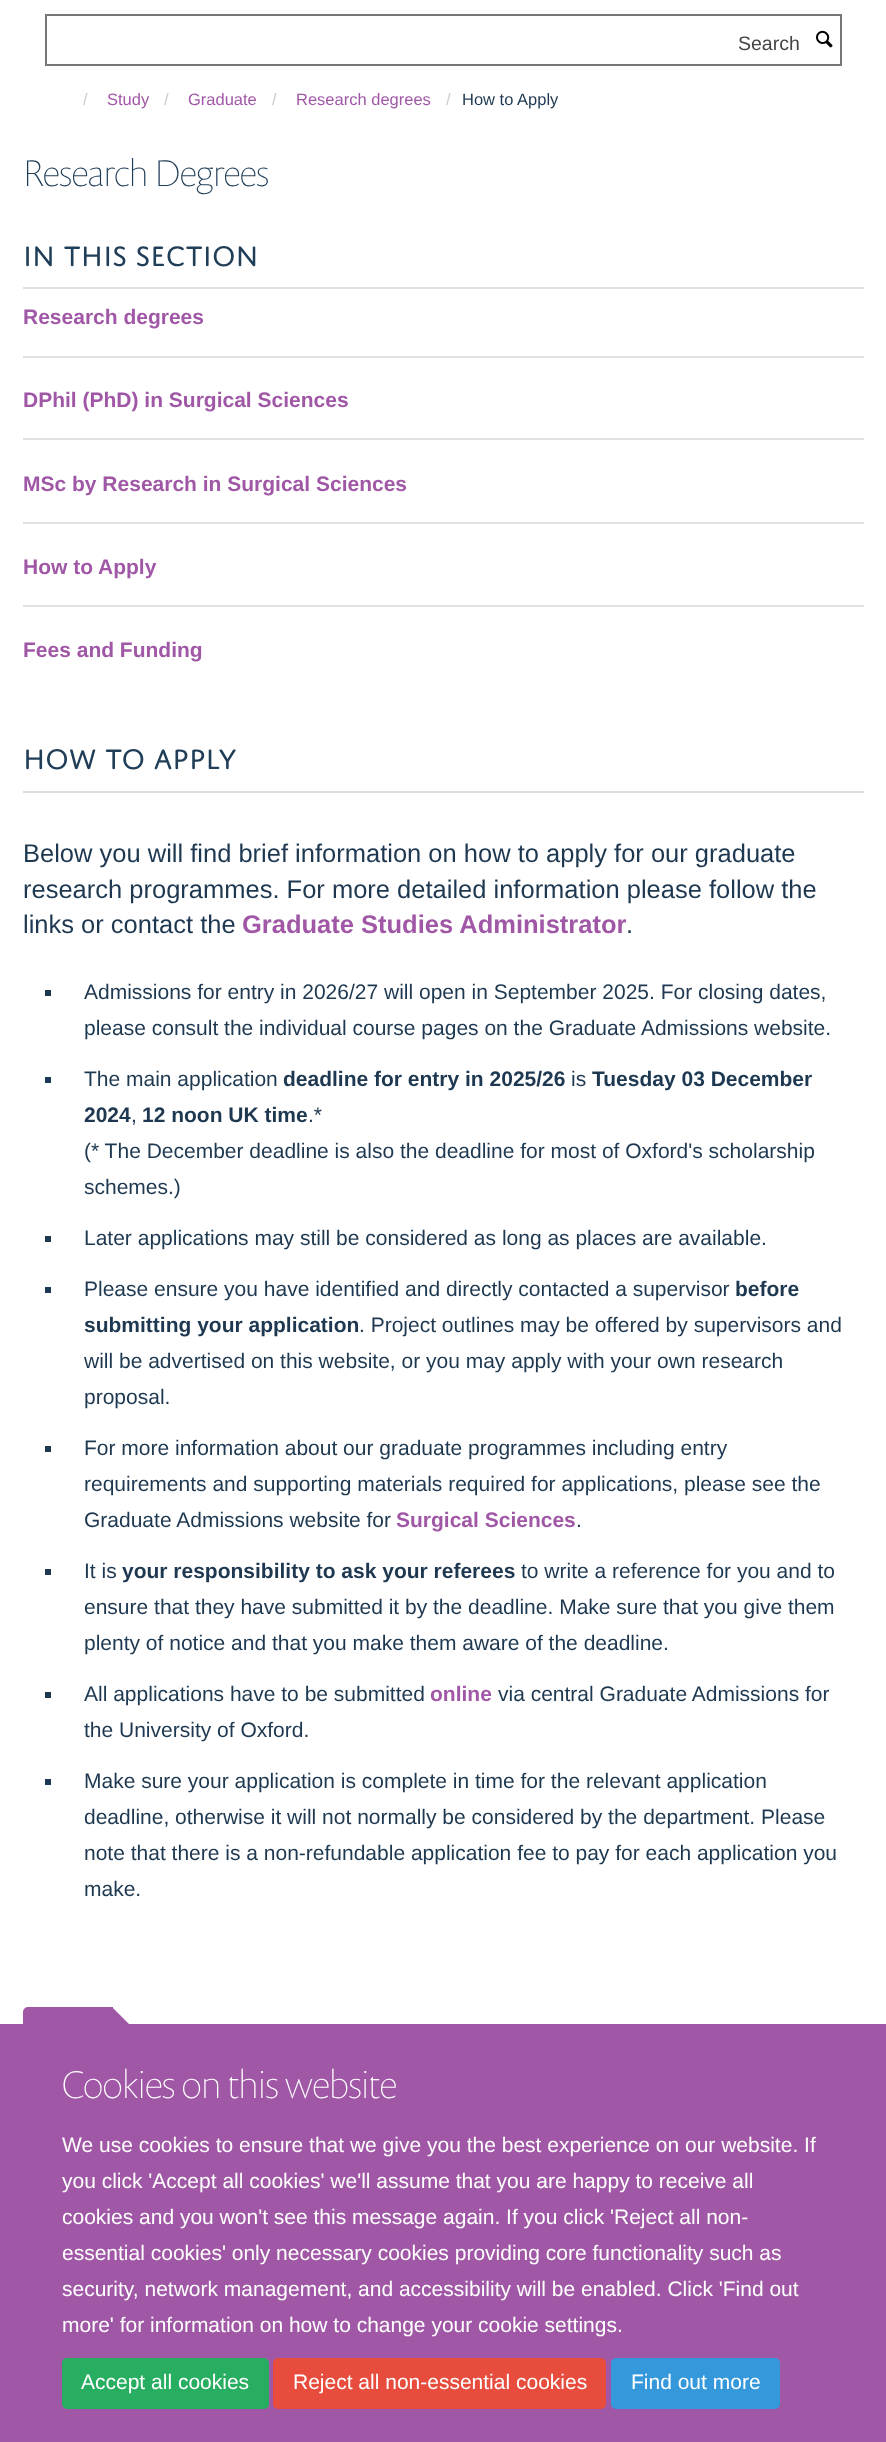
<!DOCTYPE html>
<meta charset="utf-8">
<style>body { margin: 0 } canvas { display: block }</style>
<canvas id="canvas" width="886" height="2442"></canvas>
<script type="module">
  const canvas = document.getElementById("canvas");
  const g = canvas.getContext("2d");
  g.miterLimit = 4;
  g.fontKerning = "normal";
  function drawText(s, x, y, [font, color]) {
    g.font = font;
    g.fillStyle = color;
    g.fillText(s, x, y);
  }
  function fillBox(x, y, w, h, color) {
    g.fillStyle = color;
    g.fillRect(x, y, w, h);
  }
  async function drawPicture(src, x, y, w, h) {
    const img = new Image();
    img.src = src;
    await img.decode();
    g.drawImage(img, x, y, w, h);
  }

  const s1 = ["19.5px Liberation Sans", "#444444"];
  const s2 = ["16.5px Liberation Sans", "#CCCCCC"];
  const s3 = ["16.5px Liberation Sans", "#A058A6"];
  const s4 = ["16.5px Liberation Sans", "#1D3850"];
  const s5 = ["100 37.5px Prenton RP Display", "#203E58"];
  const s6 = ["30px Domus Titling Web", "#203E58"];
  const s7 = ["bold 21px Liberation Sans", "#A058A6"];
  const s8 = ["25.5px Liberation Sans", "#1D3850"];
  const s9 = ["bold 25.5px Liberation Sans", "#A058A6"];
  const s10 = ["21px Liberation Sans", "#1D3850"];
  const s11 = ["bold 21px Liberation Sans", "#1D3850"];
  const s12 = ["100 39px Prenton RP Display", "#FFFFFF"];
  const s13 = ["21px Liberation Sans", "#FFFFFF"];

  fillBox(0, 0, 886, 2442, "#FFFFFF");
  g.strokeStyle = "#777777";
  g.lineWidth = 2;
  g.strokeRect(46, 15, 795, 50);
  drawText("Search", 738, 50, s1);
  await drawPicture("pic1.png", 816, 30, 17, 18);
  drawText("/", 83, 105, s2);
  drawText("Study", 107, 105, s3);
  drawText("/", 164, 105, s2);
  drawText("Graduate", 188, 105, s3);
  drawText("/", 272, 105, s2);
  drawText("Research degrees", 296, 105, s3);
  drawText("/", 446, 105, s2);
  drawText("How to Apply", 462, 105, s4);
  drawText("Research Degrees", 23, 186, s5);
  fillBox(23, 287, 841, 2, "#DFE1E4");
  drawText("IN THIS SECTION", 23, 266, s6);
  fillBox(23, 356, 841, 2, "#DFE1E4");
  drawText("Research degrees", 23, 324, s7);
  fillBox(23, 438, 841, 2, "#DFE1E4");
  drawText("DPhil (PhD) in Surgical Sciences", 23, 407, s7);
  fillBox(23, 522, 841, 2, "#DFE1E4");
  drawText("MSc by Research in Surgical Sciences", 23, 491, s7);
  fillBox(23, 605, 841, 2, "#DFE1E4");
  drawText("How to Apply", 23, 574, s7);
  drawText("Fees and Funding", 23, 657, s7);
  fillBox(23, 791, 841, 2, "#DDDDDD");
  drawText("HOW TO APPLY", 23, 769, s6);
  drawText("Below you will find brief information on how to apply for our graduate", 23, 862, s8);
  drawText("research programmes. For more detailed information please follow the", 23, 898, s8);
  drawText("links or contact the", 23, 933, s8);
  drawText("Graduate Studies Administrator", 242, 933, s9);
  drawText(".", 626, 933, s8);
  fillBox(45, 990, 6, 6, "#1D3850");
  drawText("Admissions for entry in 2026/27 will open in September 2025. For closing dates,", 84, 999, s10);
  drawText("please consult the individual course pages on the Graduate Admissions website.", 84, 1035, s10);
  fillBox(45, 1077, 6, 6, "#1D3850");
  drawText("The main application", 84, 1086, s10);
  drawText("deadline for entry in 2025/26", 283, 1086, s11);
  drawText("is", 571, 1086, s10);
  drawText("Tuesday 03 December", 592, 1086, s11);
  drawText("2024", 84, 1122, s11);
  drawText(",", 131, 1122, s10);
  drawText("12 noon UK time", 142, 1122, s11);
  drawText(".*", 308, 1122, s10);
  drawText("(* The December deadline is also the deadline for most of Oxford's scholarship", 84, 1158, s10);
  drawText("schemes.)", 84, 1194, s10);
  fillBox(45, 1236, 6, 6, "#1D3850");
  drawText("Later applications may still be considered as long as places are available.", 84, 1245, s10);
  fillBox(45, 1287, 6, 6, "#1D3850");
  drawText("Please ensure you have identified and directly contacted a supervisor", 84, 1296, s10);
  drawText("before", 735, 1296, s11);
  drawText("submitting your application", 84, 1332, s11);
  drawText(". Project outlines may be offered by supervisors and", 359, 1332, s10);
  drawText("will be advertised on this website, or you may apply with your own research", 84, 1368, s10);
  drawText("proposal.", 84, 1404, s10);
  fillBox(45, 1446, 6, 6, "#1D3850");
  drawText("For more information about our graduate programmes including entry", 84, 1455, s10);
  drawText("requirements and supporting materials required for applications, please see the", 84, 1491, s10);
  drawText("Graduate Admissions website for", 84, 1527, s10);
  drawText("Surgical Sciences", 396, 1527, s7);
  drawText(".", 576, 1527, s10);
  fillBox(45, 1569, 6, 6, "#1D3850");
  drawText("It is", 84, 1578, s10);
  drawText("your responsibility to ask your referees", 122, 1578, s11);
  drawText("to write a reference for you and to", 521, 1578, s10);
  drawText("ensure that they have submitted it by the deadline. Make sure that you give them", 84, 1614, s10);
  drawText("plenty of notice and that you make them aware of the deadline.", 84, 1650, s10);
  fillBox(45, 1692, 6, 6, "#1D3850");
  drawText("All applications have to be submitted", 84, 1701, s10);
  drawText("online", 430, 1701, s7);
  drawText("via central Graduate Admissions for", 498, 1701, s10);
  drawText("the University of Oxford.", 84, 1737, s10);
  fillBox(45, 1779, 6, 6, "#1D3850");
  drawText("Make sure your application is complete in time for the relevant application", 84, 1788, s10);
  drawText("deadline, otherwise it will not normally be considered by the department. Please", 84, 1824, s10);
  drawText("note that there is a non-refundable application fee to pay for each application you", 84, 1860, s10);
  drawText("make.", 84, 1896, s10);
  g.fillStyle = "#A058A6";
  g.beginPath();
  g.roundRect(24, 2008, 88, 45, [4, 0, 0, 4]);
  g.fill();
  g.strokeStyle = "#A058A6";
  g.stroke();
  g.beginPath();
  g.moveTo(112, 2054);
  g.lineTo(112, 2007);
  g.lineTo(135, 2030);
  g.closePath();
  g.fill();
  fillBox(0, 2024, 886, 418, "#A058A6");
  drawText("Cookies on this website", 62, 2098, s12);
  drawText("We use cookies to ensure that we give you the best experience on our website. If", 62, 2152, s13);
  drawText("you click 'Accept all cookies' we'll assume that you are happy to receive all", 62, 2188, s13);
  drawText("cookies and you won't see this message again. If you click 'Reject all non-", 62, 2224, s13);
  drawText("essential cookies' only necessary cookies providing core functionality such as", 62, 2260, s13);
  drawText("security, network management, and accessibility will be enabled. Click 'Find out", 62, 2296, s13);
  drawText("more' for information on how to change your cookie settings.", 62, 2332, s13);
  g.fillStyle = "#27AE60";
  g.beginPath();
  g.roundRect(63, 2359, 205, 49, 4);
  g.fill();
  g.strokeStyle = "#27AE60";
  g.stroke();
  drawText("Accept all cookies", 81, 2389, s13);
  g.fillStyle = "#E74C3C";
  g.beginPath();
  g.roundRect(274, 2359, 331, 49, 4);
  g.fill();
  g.strokeStyle = "#E74C3C";
  g.stroke();
  drawText("Reject all non-essential cookies", 293, 2389, s13);
  g.fillStyle = "#3498DB";
  g.beginPath();
  g.roundRect(612, 2359, 167, 49, 4);
  g.fill();
  g.strokeStyle = "#3498DB";
  g.stroke();
  drawText("Find out more", 631, 2389, s13);
</script>
